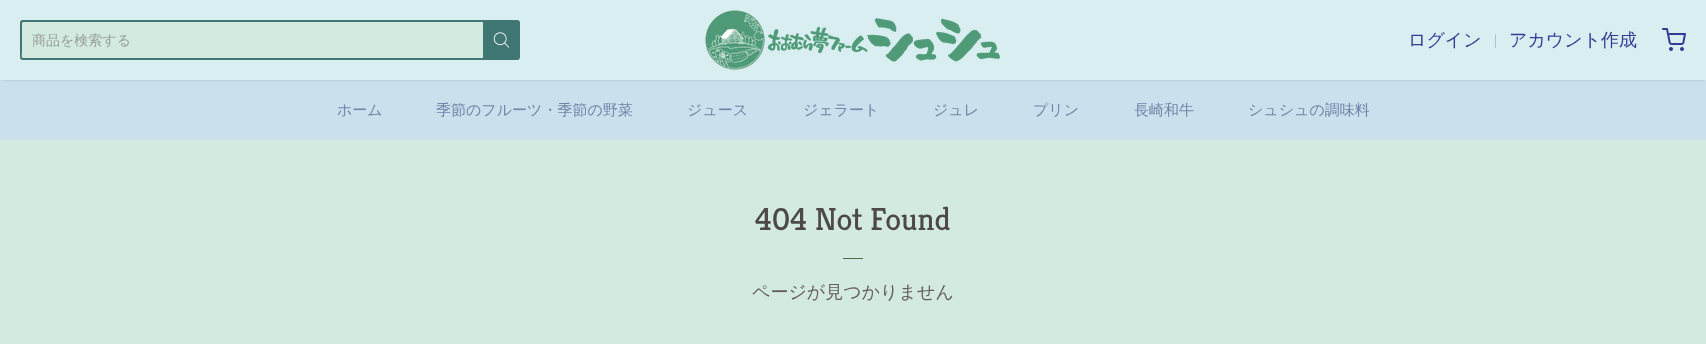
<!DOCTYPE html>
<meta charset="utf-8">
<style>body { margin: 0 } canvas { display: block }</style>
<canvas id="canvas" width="1706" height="344"></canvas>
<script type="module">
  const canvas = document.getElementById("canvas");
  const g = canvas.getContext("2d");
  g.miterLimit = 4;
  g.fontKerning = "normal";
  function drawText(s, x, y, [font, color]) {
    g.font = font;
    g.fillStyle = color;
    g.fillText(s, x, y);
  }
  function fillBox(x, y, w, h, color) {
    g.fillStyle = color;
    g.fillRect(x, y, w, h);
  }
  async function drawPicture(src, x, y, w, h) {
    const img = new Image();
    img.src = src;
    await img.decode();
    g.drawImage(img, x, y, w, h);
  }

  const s1 = ["500 14px WenQuanYi Zen Hei", "#989F99"];
  const s2 = ["500 18px WenQuanYi Zen Hei", "#333C95"];
  const s3 = ["500 15px WenQuanYi Zen Hei", "#7085A9"];
  const s4 = ["32px Kreon", "#4E4949"];
  const s5 = ["500 18px WenQuanYi Zen Hei", "#665F5D"];

  fillBox(0, 0, 1706, 344, "#D2EADF");
  fillBox(0, 80, 1706, 60, "#CAE0EC");
  g.fillStyle = "rgba(0, 0, 0, 0.2)";
  g.filter = "blur(1px)";
  g.beginPath();
  g.rect(2, 4, 1702, 76);
  g.fill();
  g.filter = "none";
  fillBox(0, 0, 1706, 80, "#D9EEF0");
  g.fillStyle = "#D2EADF";
  g.beginPath();
  g.roundRect(20, 20, 463, 40, [3, 0, 0, 3]);
  g.fill();
  g.fillStyle = "#407774";
  g.beginPath();
  g.moveTo(23, 20);
  g.lineTo(483, 20);
  g.lineTo(483, 60);
  g.lineTo(23, 60);
  g.bezierCurveTo(21, 60, 20, 59, 20, 57);
  g.lineTo(20, 23);
  g.bezierCurveTo(20, 21, 21, 20, 23, 20);
  g.closePath();
  g.moveTo(23, 22);
  g.lineTo(483, 22);
  g.lineTo(483, 58);
  g.lineTo(23, 58);
  g.bezierCurveTo(21, 58, 22, 53, 22, 51);
  g.lineTo(22, 23);
  g.closePath();
  g.fill("evenodd");
  drawText("商品を検索する", 32, 45, s1);
  g.fillStyle = "#407774";
  g.beginPath();
  g.roundRect(484, 21, 35, 38, [0, 2, 2, 0]);
  g.fill();
  g.strokeStyle = "#407774";
  g.lineWidth = 2;
  g.stroke();
  await drawPicture("pic1.png", 493, 32, 17, 16);
  await drawPicture("pic2.png", 705, 10, 295, 60);
  drawText("ログイン", 1408, 46, s2);
  fillBox(1495, 34, 1, 14, "#B3C1C3");
  drawText("アカウント作成", 1509, 46, s2);
  await drawPicture("pic3.png", 1662, 28, 24, 23);
  drawText("ホーム", 337, 115, s3);
  drawText("季節のフルーツ・季節の野菜", 436, 115, s3);
  drawText("ジュース", 687, 115, s3);
  drawText("ジェラート", 803, 115, s3);
  drawText("ジュレ", 933, 115, s3);
  drawText("プリン", 1033, 115, s3);
  drawText("長崎和牛", 1134, 115, s3);
  drawText("シュシュの調味料", 1248, 115, s3);
  drawText("404 Not Found", 755, 230, s4);
  fillBox(843, 258, 20, 1, "#476B4C");
  drawText("ページが見つかりません", 752, 298, s5);
</script>
